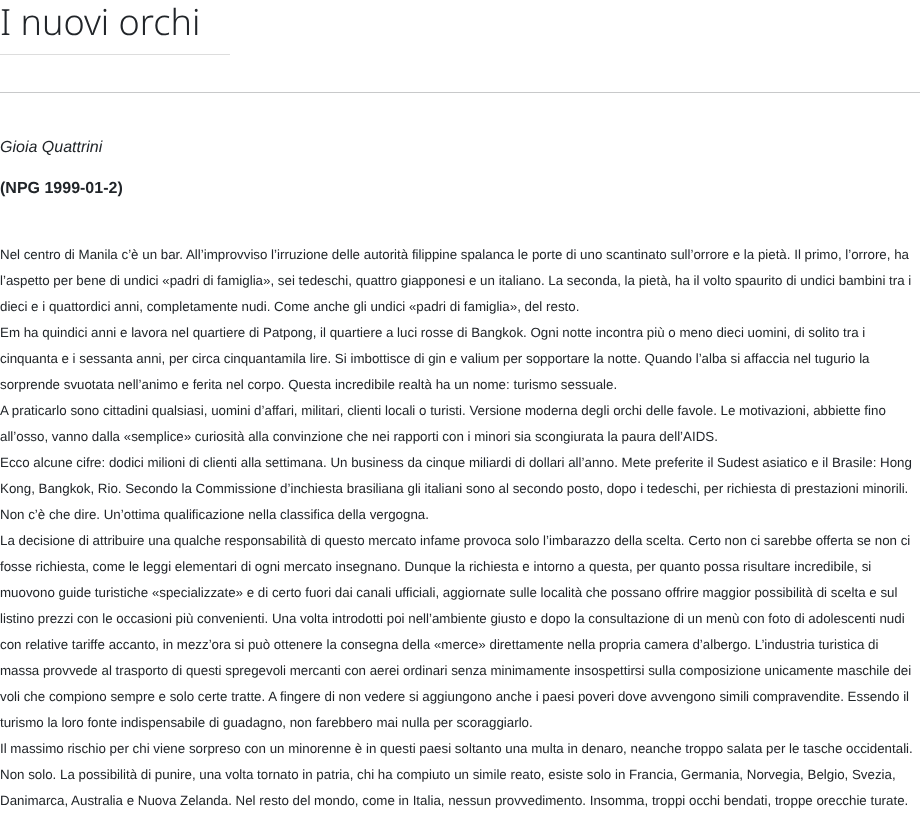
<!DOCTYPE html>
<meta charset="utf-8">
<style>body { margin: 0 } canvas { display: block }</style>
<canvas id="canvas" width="920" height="822"></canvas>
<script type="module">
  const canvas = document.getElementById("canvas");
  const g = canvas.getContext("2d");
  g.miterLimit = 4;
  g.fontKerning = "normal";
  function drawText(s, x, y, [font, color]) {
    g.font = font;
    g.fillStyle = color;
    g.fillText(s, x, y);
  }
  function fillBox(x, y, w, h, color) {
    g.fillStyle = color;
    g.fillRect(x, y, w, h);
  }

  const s1 = ["300 36px Noto Sans", "#212529"];
  const s2 = ["italic 16px Liberation Sans", "#212529"];
  const s3 = ["bold 16px Liberation Sans", "#212529"];
  const s4 = ["13.33px Liberation Sans", "#212529"];

  fillBox(0, 0, 920, 822, "#FFFFFF");
  fillBox(0, 54, 230, 1, "#DDDDDD");
  drawText("I nuovi orchi", 0, 35, s1);
  fillBox(0, 92, 920, 1, "#C8C9CA");
  drawText("Gioia Quattrini", 0, 152, s2);
  drawText("(NPG 1999-01-2)", 0, 193, s3);
  drawText("Nel centro di Manila c’è un bar. All’improvviso l’irruzione delle autorità filippine spalanca le porte di uno scantinato sull’orrore e la pietà. Il primo, l’orrore, ha", 0, 259, s4);
  drawText("l’aspetto per bene di undici «padri di famiglia», sei tedeschi, quattro giapponesi e un italiano. La seconda, la pietà, ha il volto spaurito di undici bambini tra i", 0, 285, s4);
  drawText("dieci e i quattordici anni, completamente nudi. Come anche gli undici «padri di famiglia», del resto.", 0, 311, s4);
  drawText("Em ha quindici anni e lavora nel quartiere di Patpong, il quartiere a luci rosse di Bangkok. Ogni notte incontra più o meno dieci uomini, di solito tra i", 0, 337, s4);
  drawText("cinquanta e i sessanta anni, per circa cinquantamila lire. Si imbottisce di gin e valium per sopportare la notte. Quando l’alba si affaccia nel tugurio la", 0, 363, s4);
  drawText("sorprende svuotata nell’animo e ferita nel corpo. Questa incredibile realtà ha un nome: turismo sessuale.", 0, 389, s4);
  drawText("A praticarlo sono cittadini qualsiasi, uomini d’affari, militari, clienti locali o turisti. Versione moderna degli orchi delle favole. Le motivazioni, abbiette fino", 0, 415, s4);
  drawText("all’osso, vanno dalla «semplice» curiosità alla convinzione che nei rapporti con i minori sia scongiurata la paura dell’AIDS.", 0, 441, s4);
  drawText("Ecco alcune cifre: dodici milioni di clienti alla settimana. Un business da cinque miliardi di dollari all’anno. Mete preferite il Sudest asiatico e il Brasile: Hong", 0, 467, s4);
  drawText("Kong, Bangkok, Rio. Secondo la Commissione d’inchiesta brasiliana gli italiani sono al secondo posto, dopo i tedeschi, per richiesta di prestazioni minorili.", 0, 493, s4);
  drawText("Non c’è che dire. Un’ottima qualificazione nella classifica della vergogna.", 0, 519, s4);
  drawText("La decisione di attribuire una qualche responsabilità di questo mercato infame provoca solo l’imbarazzo della scelta. Certo non ci sarebbe offerta se non ci", 0, 545, s4);
  drawText("fosse richiesta, come le leggi elementari di ogni mercato insegnano. Dunque la richiesta e intorno a questa, per quanto possa risultare incredibile, si", 0, 571, s4);
  drawText("muovono guide turistiche «specializzate» e di certo fuori dai canali ufficiali, aggiornate sulle località che possano offrire maggior possibilità di scelta e sul", 0, 597, s4);
  drawText("listino prezzi con le occasioni più convenienti. Una volta introdotti poi nell’ambiente giusto e dopo la consultazione di un menù con foto di adolescenti nudi", 0, 623, s4);
  drawText("con relative tariffe accanto, in mezz’ora si può ottenere la consegna della «merce» direttamente nella propria camera d’albergo. L’industria turistica di", 0, 649, s4);
  drawText("massa provvede al trasporto di questi spregevoli mercanti con aerei ordinari senza minimamente insospettirsi sulla composizione unicamente maschile dei", 0, 675, s4);
  drawText("voli che compiono sempre e solo certe tratte. A fingere di non vedere si aggiungono anche i paesi poveri dove avvengono simili compravendite. Essendo il", 0, 701, s4);
  drawText("turismo la loro fonte indispensabile di guadagno, non farebbero mai nulla per scoraggiarlo.", 0, 727, s4);
  drawText("Il massimo rischio per chi viene sorpreso con un minorenne è in questi paesi soltanto una multa in denaro, neanche troppo salata per le tasche occidentali.", 0, 753, s4);
  drawText("Non solo. La possibilità di punire, una volta tornato in patria, chi ha compiuto un simile reato, esiste solo in Francia, Germania, Norvegia, Belgio, Svezia,", 0, 779, s4);
  drawText("Danimarca, Australia e Nuova Zelanda. Nel resto del mondo, come in Italia, nessun provvedimento. Insomma, troppi occhi bendati, troppe orecchie turate.", 0, 805, s4);
</script>
